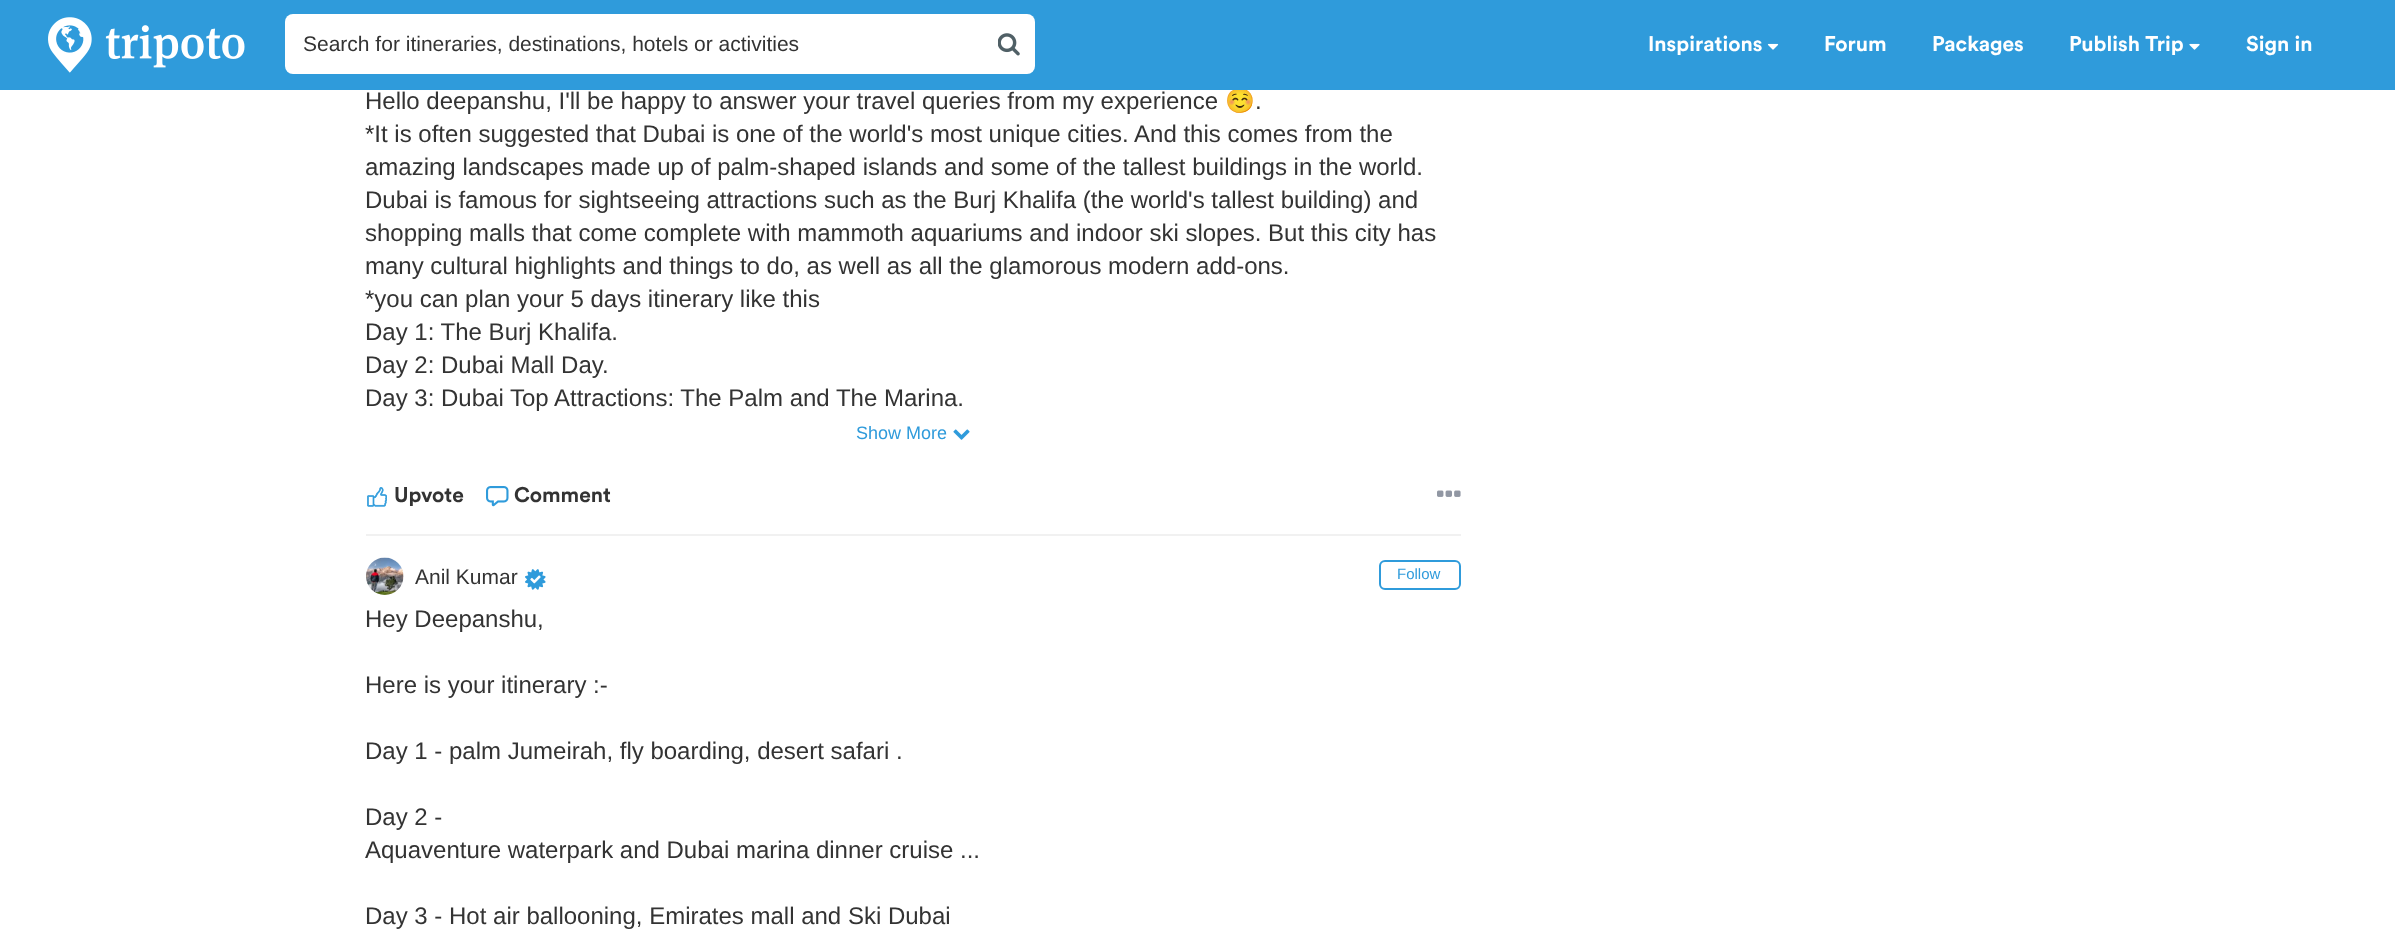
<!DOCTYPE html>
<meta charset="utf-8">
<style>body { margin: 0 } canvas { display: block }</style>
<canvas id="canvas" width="2395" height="929"></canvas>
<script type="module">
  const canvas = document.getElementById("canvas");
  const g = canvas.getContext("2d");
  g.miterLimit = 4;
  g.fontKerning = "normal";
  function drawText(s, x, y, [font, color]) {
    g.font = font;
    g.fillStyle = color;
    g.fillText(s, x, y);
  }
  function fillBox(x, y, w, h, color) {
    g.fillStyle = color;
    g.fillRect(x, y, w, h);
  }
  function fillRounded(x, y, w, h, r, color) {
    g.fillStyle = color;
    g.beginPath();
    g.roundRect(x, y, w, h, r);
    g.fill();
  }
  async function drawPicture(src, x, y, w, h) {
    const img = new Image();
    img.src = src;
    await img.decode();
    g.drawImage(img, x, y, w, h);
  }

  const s1 = ["24px Noto Color Emoji", "#333333"];
  const s2 = ["21px Liberation Sans", "#333333"];
  const s3 = ["bold 21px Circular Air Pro", "#FFFFFF"];
  const s4 = ["24px Liberation Sans", "#333333"];
  const s5 = ["18px Liberation Sans", "#2F9BDB"];
  const s6 = ["bold 21px Circular Air Pro", "#333333"];
  const s7 = ["15px Liberation Sans", "#2F9BDB"];

  fillBox(0, 0, 2395, 929, "#FFFFFF");
  drawText("☺️", 1225, 109, s1);
  fillBox(0, 0, 2395, 90, "#2F9BDB");
  await drawPicture("pic1.png", 48, 17, 197, 56);
  fillRounded(285, 14, 750, 60, 8, "#FFFFFF");
  drawText("Search for itineraries, destinations, hotels or activities", 303, 51, s2);
  await drawPicture("pic2.png", 998, 33, 22, 23);
  drawText("Inspirations", 1648, 51, s3);
  await drawPicture("pic3.png", 1767, 43, 12, 7);
  drawText("Forum", 1824, 51, s3);
  drawText("Packages", 1932, 51, s3);
  drawText("Publish Trip", 2069, 51, s3);
  await drawPicture("pic4.png", 2189, 43, 11, 7);
  drawText("Sign in", 2246, 51, s3);
  fillBox(366, 534, 1095, 2, "#F1F1F1");
  drawText("Hello deepanshu, I'll be happy to answer your travel queries from my experience", 365, 109, s4);
  drawText(".", 1255, 109, s4);
  drawText("*It is often suggested that Dubai is one of the world's most unique cities. And this comes from the", 365, 142, s4);
  drawText("amazing landscapes made up of palm-shaped islands and some of the tallest buildings in the world.", 365, 175, s4);
  drawText("Dubai is famous for sightseeing attractions such as the Burj Khalifa (the world's tallest building) and", 365, 208, s4);
  drawText("shopping malls that come complete with mammoth aquariums and indoor ski slopes. But this city has", 365, 241, s4);
  drawText("many cultural highlights and things to do, as well as all the glamorous modern add-ons.", 365, 274, s4);
  drawText("*you can plan your 5 days itinerary like this", 365, 307, s4);
  drawText("Day 1: The Burj Khalifa.", 365, 340, s4);
  drawText("Day 2: Dubai Mall Day.", 365, 373, s4);
  drawText("Day 3: Dubai Top Attractions: The Palm and The Marina.", 365, 406, s4);
  drawText("Show More", 856, 439, s5);
  await drawPicture("pic5.png", 953, 429, 17, 11);
  await drawPicture("pic6.png", 367, 487, 20, 20);
  drawText("Upvote", 394, 502, s6);
  await drawPicture("pic7.png", 486, 486, 23, 21);
  drawText("Comment", 514, 502, s6);
  await drawPicture("pic8.png", 1437, 490, 24, 7);
  await drawPicture("pic9.png", 366, 557, 38, 38);
  drawText("Anil Kumar", 415, 584, s2);
  await drawPicture("pic10.png", 525, 569, 21, 21);
  await drawPicture("pic11.png", 530, 575, 11, 9);
  g.beginPath();
  g.roundRect(1380, 561, 80, 28, 5);
  g.strokeStyle = "#2F9BDB";
  g.lineWidth = 2;
  g.stroke();
  drawText("Follow", 1397, 579, s7);
  drawText("Hey Deepanshu,", 365, 627, s4);
  drawText("Here is your itinerary :-", 365, 693, s4);
  drawText("Day 1 - palm Jumeirah, fly boarding, desert safari .", 365, 759, s4);
  drawText("Day 2 -", 365, 825, s4);
  drawText("Aquaventure waterpark and Dubai marina dinner cruise ...", 365, 858, s4);
  drawText("Day 3 - Hot air ballooning, Emirates mall and Ski Dubai", 365, 924, s4);
</script>
